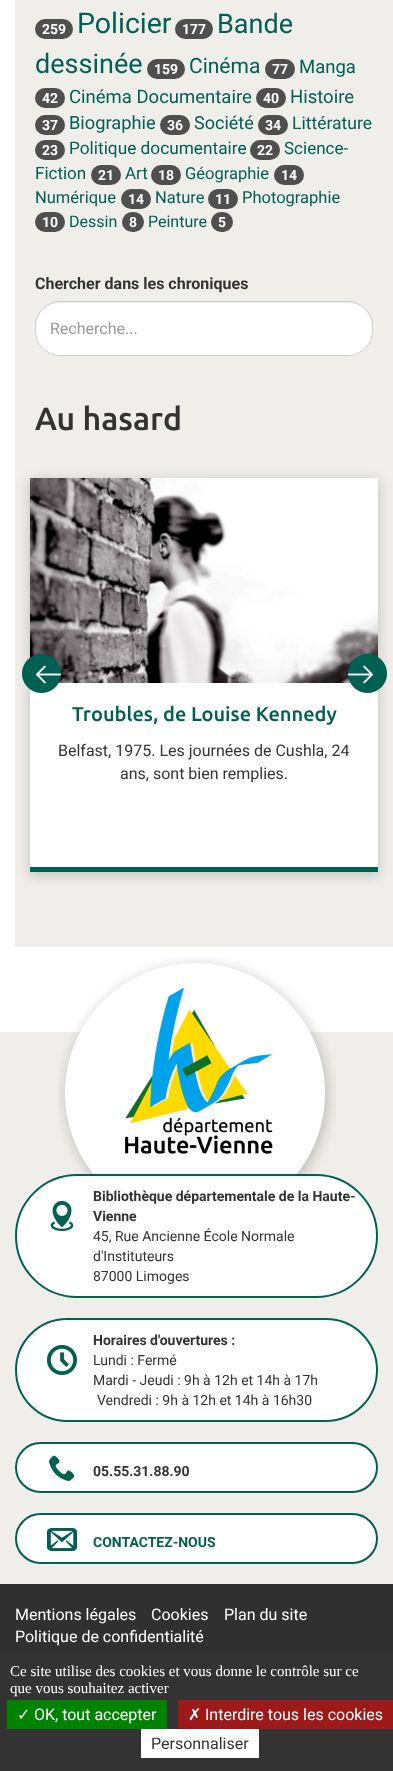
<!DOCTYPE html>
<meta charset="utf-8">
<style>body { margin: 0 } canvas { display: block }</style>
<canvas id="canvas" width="393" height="1771"></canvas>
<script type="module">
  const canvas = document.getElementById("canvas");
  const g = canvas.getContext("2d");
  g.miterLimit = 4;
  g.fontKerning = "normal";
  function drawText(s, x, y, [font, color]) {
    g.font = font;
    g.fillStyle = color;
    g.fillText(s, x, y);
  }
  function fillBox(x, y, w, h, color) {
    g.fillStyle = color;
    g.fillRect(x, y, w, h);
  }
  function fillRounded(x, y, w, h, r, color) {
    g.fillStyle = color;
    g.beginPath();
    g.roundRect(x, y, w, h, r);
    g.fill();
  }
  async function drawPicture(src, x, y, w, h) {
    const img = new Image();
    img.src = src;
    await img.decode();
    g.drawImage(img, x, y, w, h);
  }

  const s1 = ["28.5px Roboto", "#006052"];
  const s2 = ["bold 14px Roboto", "#FFFFFF"];
  const s3 = ["27px Roboto", "#006052"];
  const s4 = ["21px Roboto", "#006052"];
  const s5 = ["18.5px Roboto", "#006052"];
  const s6 = ["18.25px Roboto", "#006052"];
  const s7 = ["18px Roboto", "#006052"];
  const s8 = ["17.5px Roboto", "#006052"];
  const s9 = ["17px Roboto", "#006052"];
  const s10 = ["17.25px Roboto", "#006052"];
  const s11 = ["16.5px Roboto", "#006052"];
  const s12 = ["16px Roboto", "#006052"];
  const s13 = ["bold 16px Roboto", "#333333"];
  const s14 = ["16px Roboto", "#999999"];
  const s15 = ["500 32px Ubuntu", "#333333"];
  const s16 = ["500 20px Ubuntu", "#006052"];
  const s17 = ["16px Roboto", "#333333"];
  const s18 = ["bold 14px Roboto", "#333333"];
  const s19 = ["14px Roboto", "#333333"];
  const s20 = ["bold 14px Roboto", "#006052"];
  const s21 = ["16px Roboto", "#FFFFFF"];
  const s22 = ["15px Liberation Serif", "#FFFFFF"];
  const s23 = ["16px DejaVu Sans", "#FFFFFF"];

  fillBox(0, 0, 393, 1771, "#FFFFFF");
  fillBox(15, 0, 378, 947, "#F0EEEB");
  drawText("Policier", 77, 33, s1);
  fillRounded(175, 19, 38, 20, 10, "#4F4F4F");
  drawText("177", 182, 34, s2);
  drawText("Bande", 217, 33, s3);
  drawText("dessinée", 35, 73, s3);
  fillRounded(147, 59, 38, 20, 10, "#4F4F4F");
  drawText("159", 154, 74, s2);
  fillRounded(35, 19, 38, 20, 10, "#4F4F4F");
  drawText("259", 42, 34, s2);
  drawText("Cinéma", 189, 73, s4);
  fillRounded(265, 59, 30, 20, 10, "#4F4F4F");
  drawText("77", 272, 74, s2);
  drawText("Manga", 299, 73, s5);
  fillRounded(35, 88, 30, 20, 10, "#4F4F4F");
  drawText("42", 42, 103, s2);
  drawText("Histoire", 290, 103, s5);
  fillRounded(35, 115, 30, 20, 10, "#4F4F4F");
  drawText("37", 42, 130, s2);
  drawText("Cinéma Documentaire", 69, 103, s5);
  fillRounded(256, 88, 30, 20, 10, "#4F4F4F");
  drawText("40", 263, 103, s2);
  drawText("Biographie", 69, 129, s6);
  fillRounded(160, 115, 30, 20, 10, "#4F4F4F");
  drawText("36", 167, 130, s2);
  drawText("Société", 194, 129, s7);
  fillRounded(258, 115, 30, 20, 10, "#4F4F4F");
  drawText("34", 265, 130, s2);
  drawText("Littérature", 292, 129, s8);
  fillRounded(35, 140, 30, 20, 10, "#4F4F4F");
  drawText("23", 42, 155, s2);
  drawText("Science-", 284, 154, s9);
  drawText("Fiction", 35, 179, s9);
  fillRounded(91, 165, 30, 20, 10, "#4F4F4F");
  drawText("21", 98, 180, s2);
  drawText("Politique documentaire", 69, 154, s10);
  fillRounded(250, 140, 30, 20, 10, "#4F4F4F");
  drawText("22", 257, 155, s2);
  drawText("Art", 125, 179, s9);
  fillRounded(151, 165, 30, 20, 10, "#4F4F4F");
  drawText("18", 158, 180, s2);
  drawText("Géographie", 185, 179, s11);
  fillRounded(274, 165, 30, 20, 10, "#4F4F4F");
  drawText("14", 281, 180, s2);
  drawText("Numérique", 35, 203, s11);
  fillRounded(121, 189, 30, 20, 10, "#4F4F4F");
  drawText("14", 128, 204, s2);
  drawText("Photographie", 242, 203, s11);
  fillRounded(35, 212, 30, 20, 10, "#4F4F4F");
  drawText("10", 42, 227, s2);
  drawText("Nature", 155, 203, s11);
  fillRounded(208, 189, 30, 20, 10, "#4F4F4F");
  drawText("11", 215, 204, s2);
  drawText("Dessin", 69, 227, s12);
  fillRounded(122, 212, 22, 20, 10, "#4F4F4F");
  drawText("8", 129, 227, s2);
  drawText("Peinture", 148, 227, s12);
  fillRounded(211, 212, 22, 20, 10, "#4F4F4F");
  drawText("5", 218, 227, s2);
  drawText("Chercher dans les chroniques", 35, 289, s13);
  fillRounded(35, 301, 338, 55, 25, "#FFFFFF");
  g.fillStyle = "#ECECEC";
  g.beginPath();
  g.moveTo(60, 303);
  g.lineTo(348, 303);
  g.bezierCurveTo(361, 303, 372, 314, 372, 327);
  g.lineTo(372, 326);
  g.bezierCurveTo(372, 313, 361, 302, 348, 302);
  g.lineTo(60, 302);
  g.bezierCurveTo(47, 302, 36, 313, 36, 326);
  g.lineTo(36, 327);
  g.bezierCurveTo(36, 314, 47, 303, 60, 303);
  g.closePath();
  g.fill();
  g.beginPath();
  g.roundRect(35.5, 301.5, 337, 54, 24.5);
  g.strokeStyle = "#CCCCCC";
  g.stroke();
  drawText("Recherche...", 50, 334, s14);
  drawText("Au hasard", 35, 430, s15);
  g.fillStyle = "rgba(0, 0, 0, 0.2)";
  g.filter = "blur(6.5px)";
  g.beginPath();
  g.rect(30, 481, 348, 394);
  g.fill();
  g.filter = "none";
  fillBox(30, 683, 348, 184, "#FFFFFF");
  await drawPicture("pic3.png", 30, 478, 348, 205);
  await drawPicture("pic1.png", 22, 654, 39, 39);
  await drawPicture("pic2.png", 348, 654, 39, 39);
  fillBox(30, 867, 348, 5, "#006052");
  drawText("Troubles, de Louise Kennedy", 72, 721, s16);
  drawText("Belfast, 1975. Les journées de Cushla, 24", 58, 756, s17);
  drawText("ans, sont bien remplies.", 120, 779, s17);
  fillBox(0, 1032, 393, 552, "#F0EEEB");
  await drawPicture("pic4.png", 58, 957, 278, 217);
  g.fillStyle = "#FFFFFF";
  g.beginPath();
  g.roundRect(16, 1175, 361, 122, 61);
  g.fill();
  g.strokeStyle = "#006052";
  g.lineWidth = 2;
  g.stroke();
  drawText("Bibliothèque départementale de la Haute-", 93, 1201, s18);
  await drawPicture("pic5.png", 50, 1201, 24, 30);
  drawText("Vienne", 93, 1221, s18);
  drawText("45, Rue Ancienne École Normale", 93, 1241, s19);
  drawText("d'Instituteurs", 93, 1261, s19);
  drawText("87000 Limoges", 93, 1281, s19);
  g.fillStyle = "#FFFFFF";
  g.beginPath();
  g.roundRect(16, 1319, 361, 102, 51);
  g.fill();
  g.stroke();
  drawText("Horaires d'ouvertures :", 93, 1345, s18);
  await drawPicture("pic6.png", 47, 1345, 30, 30);
  drawText("Lundi : Fermé", 93, 1365, s19);
  drawText("Mardi - Jeudi : 9h à 12h et 14h à 17h", 93, 1385, s19);
  drawText("Vendredi : 9h à 12h et 14h à 16h30", 97, 1405, s19);
  g.fillStyle = "#FFFFFF";
  g.beginPath();
  g.roundRect(16, 1443, 361, 49, 24.5);
  g.fill();
  g.stroke();
  await drawPicture("pic7.png", 49, 1455, 26, 26);
  drawText("05.55.31.88.90", 93, 1476, s18);
  g.fillStyle = "#FFFFFF";
  g.beginPath();
  g.roundRect(16, 1514, 361, 49, 24.5);
  g.fill();
  g.stroke();
  await drawPicture("pic8.png", 47, 1528, 30, 23);
  drawText("CONTACTEZ-NOUS", 93, 1547, s20);
  fillBox(0, 1584, 393, 69, "#303030");
  drawText("Mentions légales", 15, 1620, s21);
  drawText("Cookies", 151, 1620, s21);
  drawText("Plan du site", 224, 1620, s21);
  drawText("Politique de confidentialité", 15, 1642, s21);
  fillBox(0, 1653, 393, 118, "#333333");
  drawText("Ce site utilise des cookies et vous donne le contrôle sur ce", 10, 1676, s22);
  drawText("que vous souhaitez activer", 10, 1693, s22);
  fillBox(7, 1700, 160, 29, "#008300");
  drawText("✓", 17, 1720, s23);
  drawText("OK, tout accepter", 34, 1720, s21);
  fillBox(178, 1700, 215, 29, "#9C1A1A");
  drawText("✗", 188, 1720, s23);
  drawText("Interdire tous les cookies", 205, 1720, s21);
  fillBox(141, 1729, 118, 29, "#FFFFFF");
  drawText("Personnaliser", 151, 1749, s17);
</script>
